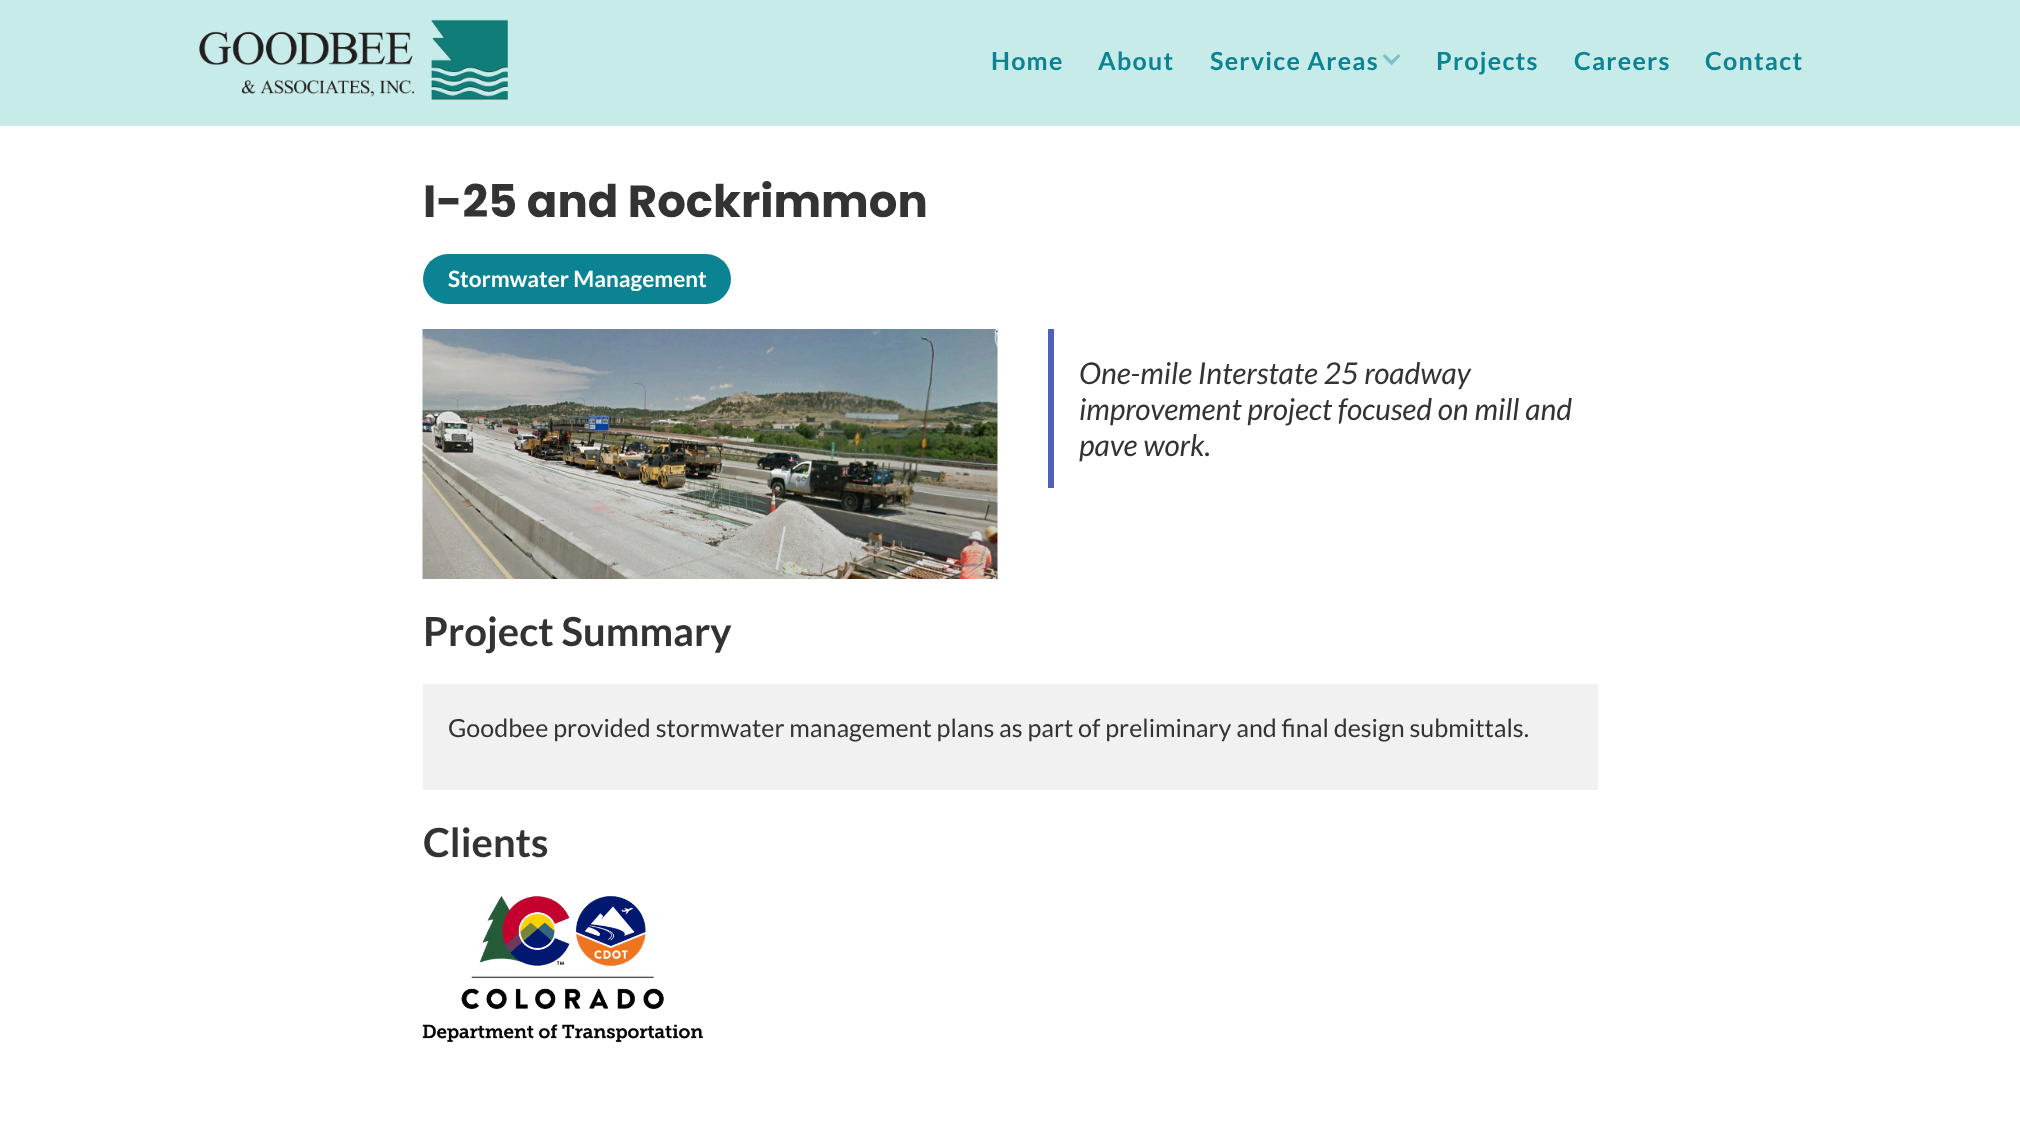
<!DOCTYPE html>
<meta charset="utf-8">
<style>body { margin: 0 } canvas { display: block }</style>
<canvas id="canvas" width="2020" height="1141"></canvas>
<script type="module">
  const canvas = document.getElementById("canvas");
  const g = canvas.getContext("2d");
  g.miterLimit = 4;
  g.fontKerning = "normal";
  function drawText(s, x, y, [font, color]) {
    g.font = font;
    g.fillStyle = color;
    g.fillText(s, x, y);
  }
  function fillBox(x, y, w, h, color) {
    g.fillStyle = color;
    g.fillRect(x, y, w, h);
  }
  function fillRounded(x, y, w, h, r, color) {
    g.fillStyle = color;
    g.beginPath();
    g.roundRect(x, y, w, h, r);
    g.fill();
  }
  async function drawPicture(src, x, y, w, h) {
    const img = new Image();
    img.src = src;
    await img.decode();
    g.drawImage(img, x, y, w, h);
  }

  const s1 = ["bold 25px Lato", "#0C8392"];
  const s2 = ["bold 45px Poppins", "#333333"];
  const s3 = ["bold 22.5px Lato", "#FFFFFF"];
  const s4 = ["italic 30px Lato", "#333333"];
  const s5 = ["bold 40px Lato", "#333333"];
  const s6 = ["25px Lato", "#333333"];

  fillBox(0, 0, 2020, 1141, "#FFFFFF");
  fillBox(0, 0, 2020, 125, "#C7EBE9");
  fillBox(0, 125, 2020, 1, "#CDEDEB");
  await drawPicture("pic1.png", 199, 19, 309, 81);
  g.letterSpacing = "1.25px";
  drawText("Home", 991, 70, s1);
  drawText("About", 1098, 70, s1);
  drawText("Service Areas", 1210, 70, s1);
  g.fillStyle = "#7CC1C6";
  g.beginPath();
  g.moveTo(1398.5, 54);
  g.lineTo(1391.5, 60.5);
  g.lineTo(1385, 54);
  g.lineTo(1382.5, 56);
  g.lineTo(1391.5, 65.5);
  g.lineTo(1400.5, 56);
  g.closePath();
  g.fill();
  drawText("Projects", 1436, 70, s1);
  drawText("Careers", 1574, 70, s1);
  drawText("Contact", 1705, 70, s1);
  g.letterSpacing = "0px";
  drawText("I-25 and Rockrimmon", 423, 217, s2);
  fillRounded(423, 254, 308, 50, 25, "#0C8392");
  drawText("Stormwater Management", 448, 287, s3);
  await drawPicture("pic2.png", 422, 329, 576, 250);
  fillBox(1048, 329, 6, 159, "#4E60BD");
  drawText("One-mile Interstate 25 roadway", 1079, 384, s4);
  drawText("improvement project focused on mill and", 1079, 420, s4);
  drawText("pave work.", 1079, 456, s4);
  drawText("Project Summary", 423, 646, s5);
  fillBox(423, 684, 1175, 106, "#F1F1F1");
  drawText("Goodbee provided stormwater management plans as part of preliminary and final design submittals.", 448, 737, s6);
  drawText("Clients", 423, 857, s5);
  await drawPicture("pic3.png", 422, 896, 281, 146);
</script>
